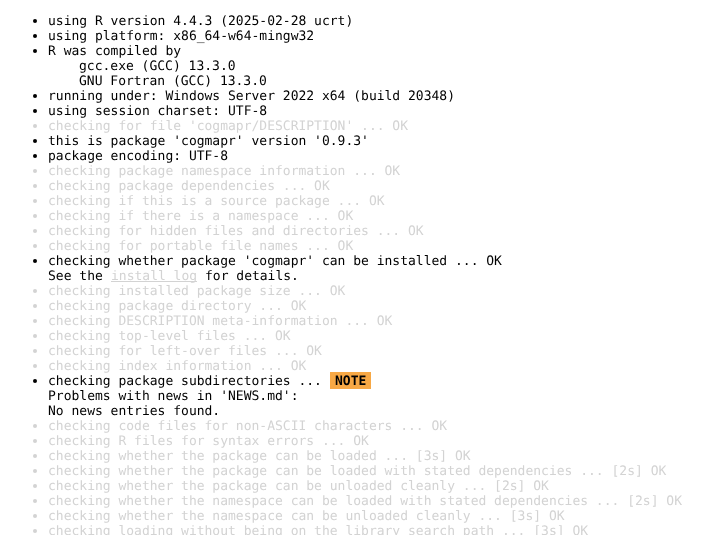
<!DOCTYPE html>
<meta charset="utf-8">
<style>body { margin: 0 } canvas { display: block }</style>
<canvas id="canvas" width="702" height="535"></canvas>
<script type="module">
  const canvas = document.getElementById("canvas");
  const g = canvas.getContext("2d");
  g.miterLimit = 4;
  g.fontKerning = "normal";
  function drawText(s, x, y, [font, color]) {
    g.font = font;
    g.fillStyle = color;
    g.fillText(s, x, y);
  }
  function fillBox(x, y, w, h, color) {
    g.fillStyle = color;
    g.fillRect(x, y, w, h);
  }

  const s1 = ["13px DejaVu Sans Mono", "#000000"];
  const s2 = ["13px DejaVu Sans Mono", "#D3D3D3"];
  const s3 = ["bold 13px DejaVu Sans Mono", "#000000"];

  fillBox(0, 0, 702, 535, "#FFFFFF");
  g.fillStyle = "#000000";
  g.beginPath();
  g.arc(35, 21, 2, 0, Math.PI * 2);
  g.fill();
  drawText("using R version 4.4.3 (2025-02-28 ucrt)", 48, 25, s1);
  g.beginPath();
  g.arc(35, 36, 2, 0, Math.PI * 2);
  g.fill();
  drawText("using platform: x86_64-w64-mingw32", 48, 40, s1);
  g.beginPath();
  g.arc(35, 51, 2, 0, Math.PI * 2);
  g.fill();
  drawText("R was compiled by", 48, 55, s1);
  drawText("gcc.exe (GCC) 13.3.0", 79, 70, s1);
  drawText("GNU Fortran (GCC) 13.3.0", 79, 85, s1);
  g.beginPath();
  g.arc(35, 96, 2, 0, Math.PI * 2);
  g.fill();
  drawText("running under: Windows Server 2022 x64 (build 20348)", 48, 100, s1);
  g.beginPath();
  g.arc(35, 111, 2, 0, Math.PI * 2);
  g.fill();
  drawText("using session charset: UTF-8", 48, 115, s1);
  g.fillStyle = "#D3D3D3";
  g.beginPath();
  g.arc(35, 126, 2, 0, Math.PI * 2);
  g.fill();
  drawText("checking for file 'cogmapr/DESCRIPTION' ... OK", 48, 130, s2);
  g.fillStyle = "#000000";
  g.beginPath();
  g.arc(35, 141, 2, 0, Math.PI * 2);
  g.fill();
  drawText("this is package 'cogmapr' version '0.9.3'", 48, 145, s1);
  g.beginPath();
  g.arc(35, 156, 2, 0, Math.PI * 2);
  g.fill();
  drawText("package encoding: UTF-8", 48, 160, s1);
  g.fillStyle = "#D3D3D3";
  g.beginPath();
  g.arc(35, 171, 2, 0, Math.PI * 2);
  g.fill();
  drawText("checking package namespace information ... OK", 48, 175, s2);
  g.beginPath();
  g.arc(35, 186, 2, 0, Math.PI * 2);
  g.fill();
  drawText("checking package dependencies ... OK", 48, 190, s2);
  g.beginPath();
  g.arc(35, 201, 2, 0, Math.PI * 2);
  g.fill();
  drawText("checking if this is a source package ... OK", 48, 205, s2);
  g.beginPath();
  g.arc(35, 216, 2, 0, Math.PI * 2);
  g.fill();
  drawText("checking if there is a namespace ... OK", 48, 220, s2);
  g.beginPath();
  g.arc(35, 231, 2, 0, Math.PI * 2);
  g.fill();
  drawText("checking for hidden files and directories ... OK", 48, 235, s2);
  g.beginPath();
  g.arc(35, 246, 2, 0, Math.PI * 2);
  g.fill();
  drawText("checking for portable file names ... OK", 48, 250, s2);
  g.fillStyle = "#000000";
  g.beginPath();
  g.arc(35, 261, 2, 0, Math.PI * 2);
  g.fill();
  drawText("checking whether package 'cogmapr' can be installed ... OK", 48, 265, s1);
  drawText("See the", 48, 280, s1);
  fillBox(111, 281, 86, 1, "#D3D3D3");
  drawText("install log", 111, 280, s2);
  drawText("for details.", 205, 280, s1);
  g.fillStyle = "#D3D3D3";
  g.beginPath();
  g.arc(35, 291, 2, 0, Math.PI * 2);
  g.fill();
  drawText("checking installed package size ... OK", 48, 295, s2);
  g.beginPath();
  g.arc(35, 306, 2, 0, Math.PI * 2);
  g.fill();
  drawText("checking package directory ... OK", 48, 310, s2);
  g.beginPath();
  g.arc(35, 321, 2, 0, Math.PI * 2);
  g.fill();
  drawText("checking DESCRIPTION meta-information ... OK", 48, 325, s2);
  g.beginPath();
  g.arc(35, 336, 2, 0, Math.PI * 2);
  g.fill();
  drawText("checking top-level files ... OK", 48, 340, s2);
  g.beginPath();
  g.arc(35, 351, 2, 0, Math.PI * 2);
  g.fill();
  drawText("checking for left-over files ... OK", 48, 355, s2);
  g.beginPath();
  g.arc(35, 366, 2, 0, Math.PI * 2);
  g.fill();
  drawText("checking index information ... OK", 48, 370, s2);
  g.fillStyle = "#000000";
  g.beginPath();
  g.arc(35, 381, 2, 0, Math.PI * 2);
  g.fill();
  drawText("checking package subdirectories ...", 48, 385, s1);
  fillBox(330, 372, 41, 17, "#F7A845");
  drawText("NOTE", 335, 385, s3);
  drawText("Problems with news in 'NEWS.md':", 48, 400, s1);
  drawText("No news entries found.", 48, 415, s1);
  g.fillStyle = "#D3D3D3";
  g.beginPath();
  g.arc(35, 426, 2, 0, Math.PI * 2);
  g.fill();
  drawText("checking code files for non-ASCII characters ... OK", 48, 430, s2);
  g.beginPath();
  g.arc(35, 441, 2, 0, Math.PI * 2);
  g.fill();
  drawText("checking R files for syntax errors ... OK", 48, 445, s2);
  g.beginPath();
  g.arc(35, 456, 2, 0, Math.PI * 2);
  g.fill();
  drawText("checking whether the package can be loaded ... [3s] OK", 48, 460, s2);
  g.beginPath();
  g.arc(35, 471, 2, 0, Math.PI * 2);
  g.fill();
  drawText("checking whether the package can be loaded with stated dependencies ... [2s] OK", 48, 475, s2);
  g.beginPath();
  g.arc(35, 486, 2, 0, Math.PI * 2);
  g.fill();
  drawText("checking whether the package can be unloaded cleanly ... [2s] OK", 48, 490, s2);
  g.beginPath();
  g.arc(35, 501, 2, 0, Math.PI * 2);
  g.fill();
  drawText("checking whether the namespace can be loaded with stated dependencies ... [2s] OK", 48, 505, s2);
  g.beginPath();
  g.arc(35, 516, 2, 0, Math.PI * 2);
  g.fill();
  drawText("checking whether the namespace can be unloaded cleanly ... [3s] OK", 48, 520, s2);
  g.beginPath();
  g.arc(35, 531, 2, 0, Math.PI * 2);
  g.fill();
  drawText("checking loading without being on the library search path ... [3s] OK", 48, 535, s2);
</script>
